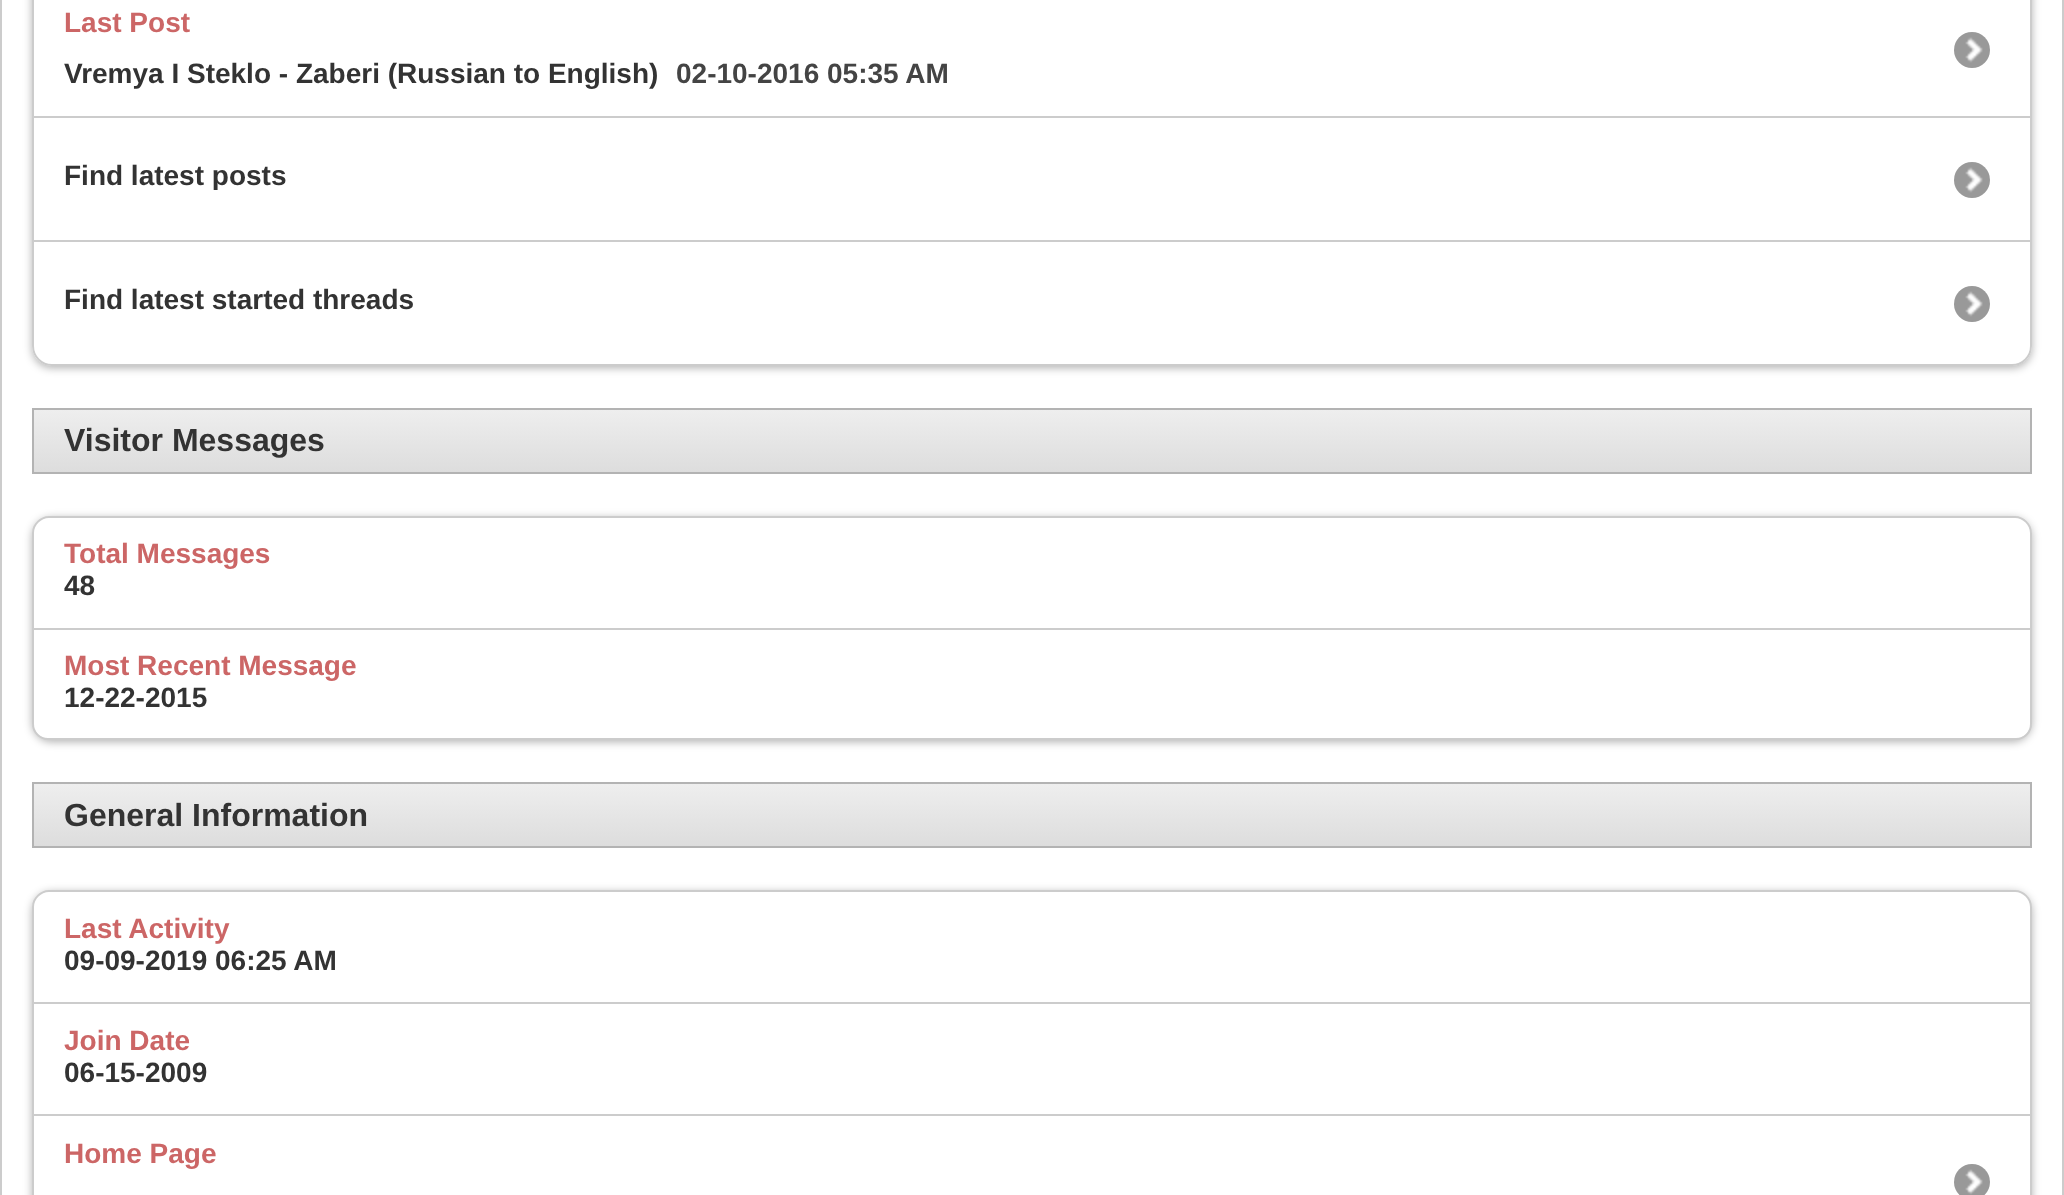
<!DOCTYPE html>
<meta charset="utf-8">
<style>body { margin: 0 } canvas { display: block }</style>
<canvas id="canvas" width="2064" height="1195"></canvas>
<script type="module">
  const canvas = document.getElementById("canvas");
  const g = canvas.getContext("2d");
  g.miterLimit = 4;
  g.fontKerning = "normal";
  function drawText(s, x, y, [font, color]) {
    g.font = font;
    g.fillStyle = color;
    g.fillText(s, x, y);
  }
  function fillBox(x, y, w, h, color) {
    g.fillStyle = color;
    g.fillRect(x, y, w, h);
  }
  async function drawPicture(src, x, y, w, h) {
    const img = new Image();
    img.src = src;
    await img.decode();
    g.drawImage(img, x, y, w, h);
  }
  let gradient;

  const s1 = ["bold 28px Liberation Sans", "#CC6666"];
  const s2 = ["bold 28px Liberation Sans", "#333333"];
  const s3 = ["bold 28px Liberation Sans", "#444444"];
  const s4 = ["bold 32px Liberation Sans", "#333333"];

  fillBox(0, 0, 2064, 1195, "#FFFFFF");
  g.strokeStyle = "#CCCCCC";
  g.lineWidth = 2;
  g.strokeRect(1, -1, 2062, 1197);
  g.save();
  g.beginPath();
  g.moveTo(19, 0);
  g.lineTo(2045, 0);
  g.lineTo(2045, 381);
  g.lineTo(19, 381);
  g.closePath();
  g.moveTo(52, -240);
  g.lineTo(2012, -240);
  g.bezierCurveTo(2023, -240, 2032, -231, 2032, -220);
  g.lineTo(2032, 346);
  g.bezierCurveTo(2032, 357, 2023, 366, 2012, 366);
  g.lineTo(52, 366);
  g.bezierCurveTo(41, 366, 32, 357, 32, 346);
  g.lineTo(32, -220);
  g.bezierCurveTo(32, -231, 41, -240, 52, -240);
  g.closePath();
  g.clip("evenodd");
  g.fillStyle = "rgba(0, 0, 0, 0.3)";
  g.filter = "blur(4px)";
  g.beginPath();
  g.roundRect(32, -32, 2000, 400, 20);
  g.fill();
  g.filter = "none";
  g.restore();
  fillBox(2030, 0, 2, 116, "#CCCCCC");
  fillBox(32, 0, 2, 116, "#CCCCCC");
  drawText("Last Post", 64, 32, s1);
  drawText("Vremya I Steklo - Zaberi (Russian to English)", 64, 83, s2);
  drawText("02-10-2016 05:35 AM", 676, 83, s3);
  g.fillStyle = "#999999";
  g.beginPath();
  g.arc(1972, 50, 18, 0, Math.PI * 2);
  g.fill();
  await drawPicture("pic1.png", 1965, 37, 18, 26);
  fillBox(32, 116, 2000, 2, "#CCCCCC");
  fillBox(2030, 116, 2, 124, "#CCCCCC");
  fillBox(32, 116, 2, 124, "#CCCCCC");
  g.save();
  g.beginPath();
  g.rect(64, 140, 232, 50);
  g.clip();
  drawText("Find latest posts", 64, 185, s2);
  g.restore();
  g.fillStyle = "#999999";
  g.beginPath();
  g.arc(1972, 180, 18, 0, Math.PI * 2);
  g.fill();
  await drawPicture("pic1.png", 1965, 167, 18, 26);
  g.beginPath();
  g.roundRect(33, 241, 1998, 124, [0, 0, 19, 19]);
  g.stroke();
  drawText("Find latest started threads", 64, 309, s2);
  g.fillStyle = "#999999";
  g.beginPath();
  g.arc(1972, 304, 18, 0, Math.PI * 2);
  g.fill();
  await drawPicture("pic1.png", 1965, 291, 18, 26);
  gradient = g.createLinearGradient(1032, 410, 1032, 472);
  gradient.addColorStop(0, "#EEEEEE");
  gradient.addColorStop(1, "#DDDDDD");
  g.fillStyle = gradient;
  g.fillRect(34, 410, 1996, 62);
  g.strokeStyle = "#B3B3B3";
  g.strokeRect(33, 409, 1998, 64);
  drawText("Visitor Messages", 64, 451, s4);
  g.save();
  g.beginPath();
  g.moveTo(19, 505);
  g.lineTo(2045, 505);
  g.lineTo(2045, 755);
  g.lineTo(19, 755);
  g.closePath();
  g.moveTo(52, 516);
  g.lineTo(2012, 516);
  g.bezierCurveTo(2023, 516, 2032, 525, 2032, 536);
  g.lineTo(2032, 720);
  g.bezierCurveTo(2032, 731, 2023, 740, 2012, 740);
  g.lineTo(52, 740);
  g.bezierCurveTo(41, 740, 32, 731, 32, 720);
  g.lineTo(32, 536);
  g.bezierCurveTo(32, 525, 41, 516, 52, 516);
  g.closePath();
  g.clip("evenodd");
  g.fillStyle = "rgba(0, 0, 0, 0.3)";
  g.filter = "blur(4px)";
  g.beginPath();
  g.roundRect(32, 518, 2000, 224, 20);
  g.fill();
  g.filter = "none";
  g.restore();
  g.fillStyle = "#CCCCCC";
  g.beginPath();
  g.moveTo(49, 516);
  g.lineTo(2015, 516);
  g.bezierCurveTo(2024, 516, 2032, 524, 2032, 533);
  g.lineTo(2032, 628);
  g.lineTo(32, 628);
  g.lineTo(32, 533);
  g.bezierCurveTo(32, 524, 40, 516, 49, 516);
  g.closePath();
  g.moveTo(49, 518);
  g.lineTo(2015, 518);
  g.bezierCurveTo(2023, 518, 2030, 525, 2030, 533);
  g.lineTo(2030, 628);
  g.lineTo(34, 628);
  g.lineTo(34, 533);
  g.bezierCurveTo(34, 525, 41, 518, 49, 518);
  g.closePath();
  g.fill("evenodd");
  drawText("Total Messages", 64, 563, s1);
  drawText("48", 64, 595, s2);
  g.beginPath();
  g.roundRect(33, 629, 1998, 110, [0, 0, 15, 15]);
  g.strokeStyle = "#CCCCCC";
  g.stroke();
  drawText("Most Recent Message", 64, 675, s1);
  drawText("12-22-2015", 64, 707, s2);
  gradient = g.createLinearGradient(1032, 784, 1032, 846);
  gradient.addColorStop(0, "#EEEEEE");
  gradient.addColorStop(1, "#DDDDDD");
  g.fillStyle = gradient;
  g.fillRect(34, 784, 1996, 62);
  g.strokeStyle = "#B3B3B3";
  g.strokeRect(33, 783, 1998, 64);
  drawText("General Information", 64, 826, s4);
  g.save();
  g.beginPath();
  g.moveTo(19, 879);
  g.lineTo(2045, 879);
  g.lineTo(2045, 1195);
  g.lineTo(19, 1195);
  g.closePath();
  g.moveTo(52, 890);
  g.lineTo(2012, 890);
  g.bezierCurveTo(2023, 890, 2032, 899, 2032, 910);
  g.lineTo(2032, 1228);
  g.bezierCurveTo(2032, 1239, 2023, 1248, 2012, 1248);
  g.lineTo(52, 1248);
  g.bezierCurveTo(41, 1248, 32, 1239, 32, 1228);
  g.lineTo(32, 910);
  g.bezierCurveTo(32, 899, 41, 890, 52, 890);
  g.closePath();
  g.clip("evenodd");
  g.fillStyle = "rgba(0, 0, 0, 0.3)";
  g.filter = "blur(4px)";
  g.beginPath();
  g.roundRect(32, 892, 2000, 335, 20);
  g.fill();
  g.filter = "none";
  g.restore();
  g.fillStyle = "#CCCCCC";
  g.beginPath();
  g.moveTo(49, 890);
  g.lineTo(2015, 890);
  g.bezierCurveTo(2024, 890, 2032, 898, 2032, 907);
  g.lineTo(2032, 1002);
  g.lineTo(32, 1002);
  g.lineTo(32, 907);
  g.bezierCurveTo(32, 898, 40, 890, 49, 890);
  g.closePath();
  g.moveTo(49, 892);
  g.lineTo(2015, 892);
  g.bezierCurveTo(2023, 892, 2030, 899, 2030, 907);
  g.lineTo(2030, 1002);
  g.lineTo(34, 1002);
  g.lineTo(34, 907);
  g.bezierCurveTo(34, 899, 41, 892, 49, 892);
  g.closePath();
  g.fill("evenodd");
  drawText("Last Activity", 64, 938, s1);
  drawText("09-09-2019 06:25 AM", 64, 970, s2);
  fillBox(32, 1002, 2000, 2, "#CCCCCC");
  fillBox(2030, 1002, 2, 112, "#CCCCCC");
  fillBox(32, 1002, 2, 112, "#CCCCCC");
  drawText("Join Date", 64, 1050, s1);
  drawText("06-15-2009", 64, 1082, s2);
  g.strokeStyle = "#CCCCCC";
  g.strokeRect(33, 1115, 1998, 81);
  drawText("Home Page", 64, 1163, s1);
  g.fillStyle = "#999999";
  g.beginPath();
  g.arc(1972, 1182, 18, 0, Math.PI * 2);
  g.fill();
  await drawPicture("pic1.png", 1965, 1169, 18, 26);
</script>
